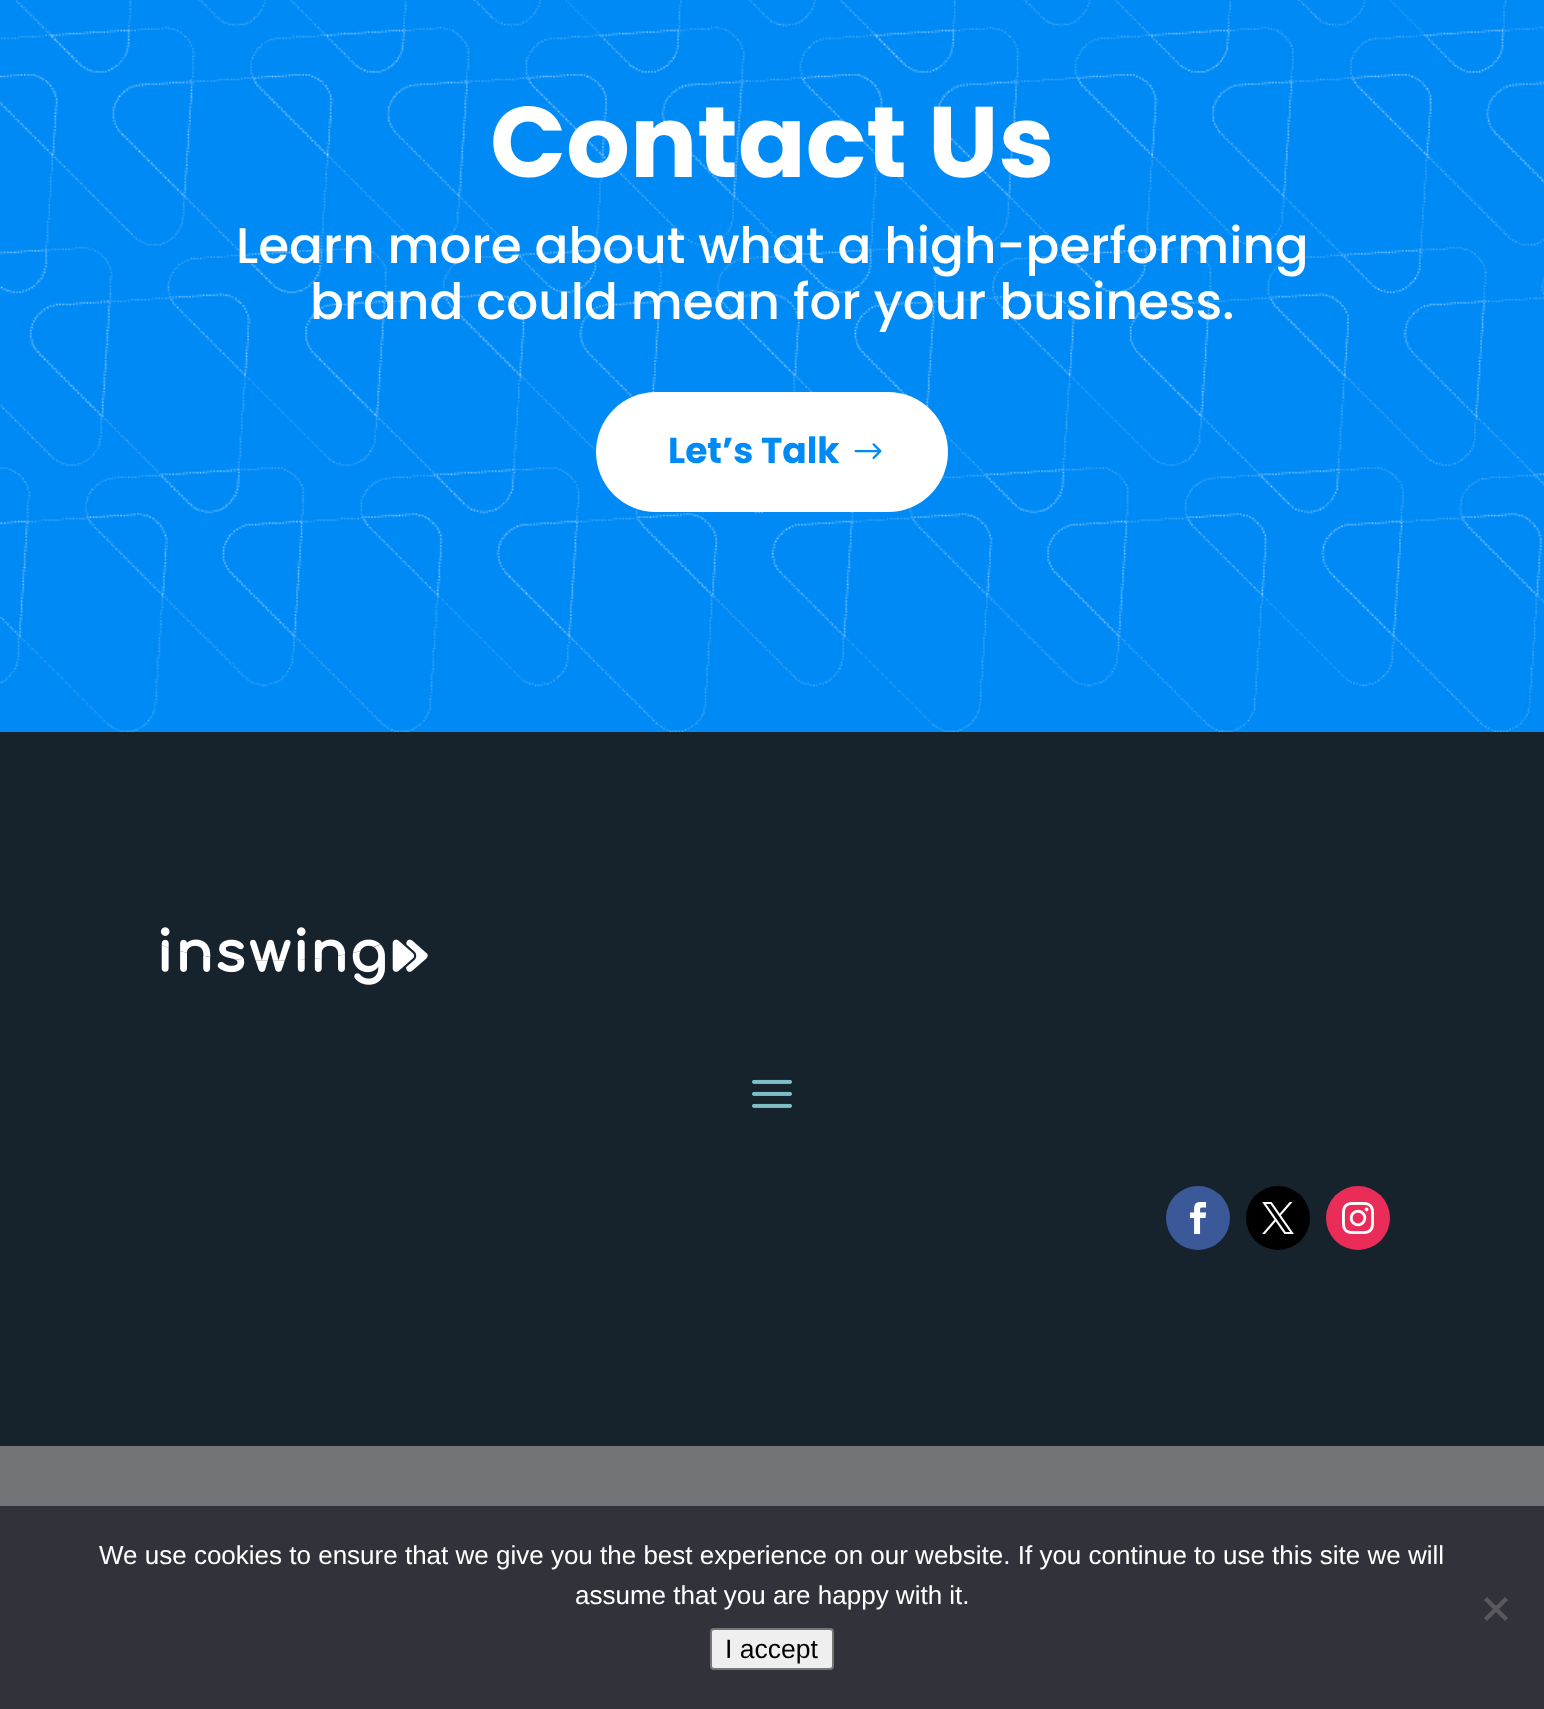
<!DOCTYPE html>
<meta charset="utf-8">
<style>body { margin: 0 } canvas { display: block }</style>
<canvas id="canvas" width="1544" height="1709"></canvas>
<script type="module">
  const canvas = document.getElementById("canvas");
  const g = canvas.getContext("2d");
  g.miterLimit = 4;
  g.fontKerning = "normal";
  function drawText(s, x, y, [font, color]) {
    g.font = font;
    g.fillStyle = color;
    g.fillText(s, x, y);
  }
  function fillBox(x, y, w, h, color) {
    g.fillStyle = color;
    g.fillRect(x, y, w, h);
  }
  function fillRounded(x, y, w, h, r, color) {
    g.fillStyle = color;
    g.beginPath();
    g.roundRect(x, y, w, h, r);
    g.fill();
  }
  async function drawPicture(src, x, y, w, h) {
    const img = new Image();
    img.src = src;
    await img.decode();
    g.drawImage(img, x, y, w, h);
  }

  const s1 = ["bold 100px Poppins", "#FFFFFF"];
  const s2 = ["500 50px Poppins", "#FFFFFF"];
  const s3 = ["bold 36px Poppins", "#008AF5"];
  const s4 = ["26px Liberation Sans", "#FFFFFF"];
  const s5 = ["26.5px Liberation Sans", "#000000"];

  fillBox(0, 0, 1544, 1709, "#008AF5");
  await drawPicture("pic1.png", 0, 0, 1544, 732);
  drawText("Contact Us", 490, 177, s1);
  drawText("Learn more about what a high-performing", 236, 263, s2);
  drawText("brand could mean for your business.", 310, 319, s2);
  fillRounded(596, 392, 352, 120, 60, "#FFFFFF");
  drawText("Let’s Talk", 668, 463, s3);
  await drawPicture("pic2.png", 854, 443, 28, 16);
  fillBox(0, 732, 1544, 714, "#16232D");
  await drawPicture("pic3.png", 160, 927, 268, 58);
  await drawPicture("pic4.png", 752, 1079, 40, 29);
  g.fillStyle = "#3B5998";
  g.beginPath();
  g.arc(1198, 1218, 32, 0, Math.PI * 2);
  g.fill();
  await drawPicture("pic5.png", 1190, 1202, 17, 32);
  g.fillStyle = "#000000";
  g.beginPath();
  g.arc(1278, 1218, 32, 0, Math.PI * 2);
  g.fill();
  await drawPicture("pic6.png", 1262, 1202, 32, 32);
  g.fillStyle = "#EA2C59";
  g.beginPath();
  g.arc(1358, 1218, 32, 0, Math.PI * 2);
  g.fill();
  await drawPicture("pic7.png", 1342, 1202, 32, 32);
  fillBox(0, 1446, 1544, 60, "#727377");
  fillBox(0, 1506, 1544, 203, "#32323A");
  drawText("We use cookies to ensure that we give you the best experience on our website. If you continue to use this site we will", 99, 1564, s4);
  drawText("assume that you are happy with it.", 575, 1604, s4);
  g.fillStyle = "#59595D";
  g.beginPath();
  g.moveTo(1505, 1597);
  g.lineTo(1508, 1600);
  g.lineTo(1487, 1621);
  g.lineTo(1484, 1618);
  g.closePath();
  g.fill();
  g.beginPath();
  g.moveTo(1484, 1600);
  g.lineTo(1487, 1597);
  g.lineTo(1508, 1618);
  g.lineTo(1505, 1621);
  g.closePath();
  g.fill();
  g.fillStyle = "#EFEFEF";
  g.beginPath();
  g.roundRect(711, 1629, 122, 40, 3);
  g.fill();
  g.strokeStyle = "#767676";
  g.lineWidth = 2;
  g.stroke();
  drawText("I accept", 725, 1658, s5);
</script>
